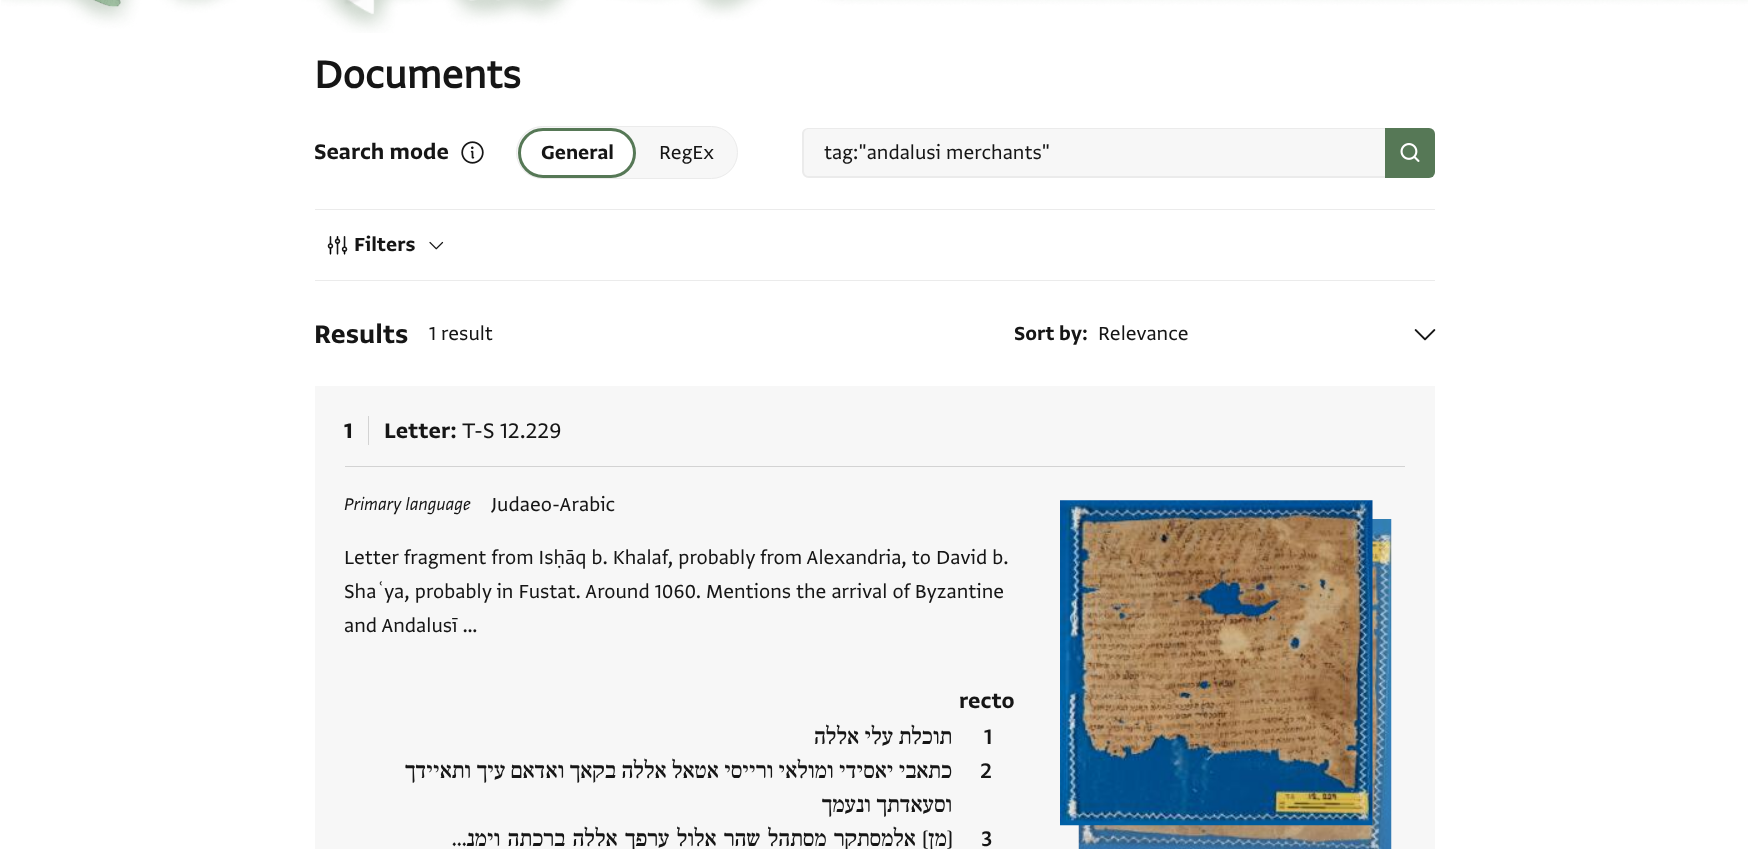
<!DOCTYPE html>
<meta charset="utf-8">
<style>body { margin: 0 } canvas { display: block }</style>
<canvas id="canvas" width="1748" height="849"></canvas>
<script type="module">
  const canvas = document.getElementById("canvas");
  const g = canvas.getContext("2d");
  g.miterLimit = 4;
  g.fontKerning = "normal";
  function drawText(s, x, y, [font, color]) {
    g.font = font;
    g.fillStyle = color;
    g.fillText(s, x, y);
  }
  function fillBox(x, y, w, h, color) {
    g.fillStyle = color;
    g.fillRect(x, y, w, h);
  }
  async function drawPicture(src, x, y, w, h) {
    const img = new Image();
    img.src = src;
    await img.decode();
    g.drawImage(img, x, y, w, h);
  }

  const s1 = ["bold 45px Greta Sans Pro", "#161616"];
  const s2 = ["bold 25px 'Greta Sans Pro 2'", "#161616"];
  const s3 = ["bold 22.5px 'Greta Sans Pro 2'", "#161616"];
  const s4 = ["22.5px Greta Sans Pro", "#161616"];
  const s5 = ["bold 30px 'Greta Sans Pro 2'", "#161616"];
  const s6 = ["25px Greta Sans Pro", "#161616"];
  const s7 = ["italic 20px Greta Sans Pro", "#161616"];
  const s8 = ["22.5px Liberation Sans", "#161616"];
  const s9 = ["500 25px 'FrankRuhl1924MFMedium'", "#161616"];
  const s10 = ["600 25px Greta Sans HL", "#161616"];

  fillBox(0, 0, 1748, 849, "#FFFFFF");
  await drawPicture("pic1.png", 1, 0, 1747, 33);
  await drawPicture("pic2.png", 93, 0, 28, 7);
  drawText("Documents", 314, 88, s1);
  drawText("Search mode", 314, 159, s2);
  await drawPicture("pic3.png", 461, 141, 23, 23);
  g.fillStyle = "#F7F7F7";
  g.beginPath();
  g.roundRect(516.5, 126.5, 221, 52, 26);
  g.fill();
  g.strokeStyle = "#EBEBEB";
  g.stroke();
  g.fillStyle = "#FFFFFF";
  g.beginPath();
  g.roundRect(519.5, 129.5, 115, 47, 23.5);
  g.fill();
  g.strokeStyle = "#567856";
  g.lineWidth = 3;
  g.stroke();
  drawText("General", 541, 159, s3);
  drawText("RegEx", 659, 159, s4);
  g.fillStyle = "#F7F7F7";
  g.beginPath();
  g.roundRect(803, 128, 582, 50, [6, 0, 0, 6]);
  g.fill();
  g.fillStyle = "#EBEBEB";
  g.beginPath();
  g.moveTo(809, 128);
  g.lineTo(1385, 128);
  g.lineTo(1385, 178);
  g.lineTo(809, 178);
  g.bezierCurveTo(805, 178, 802, 175, 802, 171);
  g.lineTo(802, 134);
  g.bezierCurveTo(802, 130, 805, 128, 809, 128);
  g.closePath();
  g.moveTo(809, 129);
  g.lineTo(1385, 129);
  g.lineTo(1385, 176);
  g.lineTo(809, 176);
  g.bezierCurveTo(806, 176, 804, 174, 804, 171);
  g.lineTo(804, 134);
  g.bezierCurveTo(804, 131, 806, 129, 809, 129);
  g.closePath();
  g.fill("evenodd");
  drawText("tag:\"andalusi merchants\"", 824, 159, s4);
  g.fillStyle = "#567856";
  g.beginPath();
  g.roundRect(1385, 128, 50, 50, [0, 6, 6, 0]);
  g.fill();
  await drawPicture("pic4.png", 1400, 143, 20, 19);
  fillBox(315, 209, 1120, 1, "#EBEBEB");
  fillBox(315, 280, 1120, 1, "#EBEBEB");
  await drawPicture("pic5.png", 327, 236, 21, 19);
  drawText("Filters", 354, 251, s3);
  await drawPicture("pic6.png", 429, 241, 15, 9);
  drawText("Results", 314, 343, s5);
  drawText("1 result", 429, 340, s4);
  drawText("Sort by:", 1014, 340, s3);
  drawText("Relevance", 1098, 340, s4);
  await drawPicture("pic7.png", 1414, 329, 22, 12);
  fillBox(315, 386, 1120, 463, "#F7F7F7");
  fillBox(345, 466, 1060, 1, "#D3D3D3");
  drawText("1", 344, 438, s2);
  fillBox(368, 416, 1, 29, "#D3D3D3");
  drawText("Letter:", 384, 438, s2);
  drawText("T-S 12.229", 462, 438, s6);
  drawText("Primary language", 344, 510, s7);
  drawText("Judaeo-Arabic", 491, 511, s4);
  drawText("Letter fragment from Isḥāq b. Khalaf, probably from Alexandria, to David b.", 344, 564, s4);
  drawText("Sha", 344, 598, s4);
  drawText("ʿ", 377, 598, s8);
  drawText("ya, probably in Fustat. Around 1060. Mentions the arrival of Byzantine", 384, 598, s4);
  drawText("and Andalusī …", 344, 632, s4);
  drawText("recto", 959, 708, s2);
  g.wordSpacing = "-0.75px";
  g.direction = "rtl";
  drawText("תוכלת עלי אללה", 952, 744, s9);
  g.wordSpacing = "0px";
  g.direction = "ltr";
  drawText("1", 984, 744, s10);
  g.wordSpacing = "-0.75px";
  g.direction = "rtl";
  drawText("כתאבי יאסידי ומולאי ורייסי אטאל אללה בקאך ואדאם עיך ותאיידך", 952, 778, s9);
  drawText("וסעאדתך ונעמך", 952, 812, s9);
  g.wordSpacing = "0px";
  g.direction = "ltr";
  drawText("2", 980, 778, s10);
  g.wordSpacing = "1px";
  g.direction = "rtl";
  drawText("[מן] אלמסתקר מסתהל שהר אלול ערפך אללה ברכתה וימנ…", 952, 846, s9);
  g.wordSpacing = "0px";
  g.direction = "ltr";
  drawText("3", 981, 846, s10);
  await drawPicture("pic9.png", 1078, 519, 314, 330);
  await drawPicture("pic8.png", 1060, 500, 313, 326);
</script>
